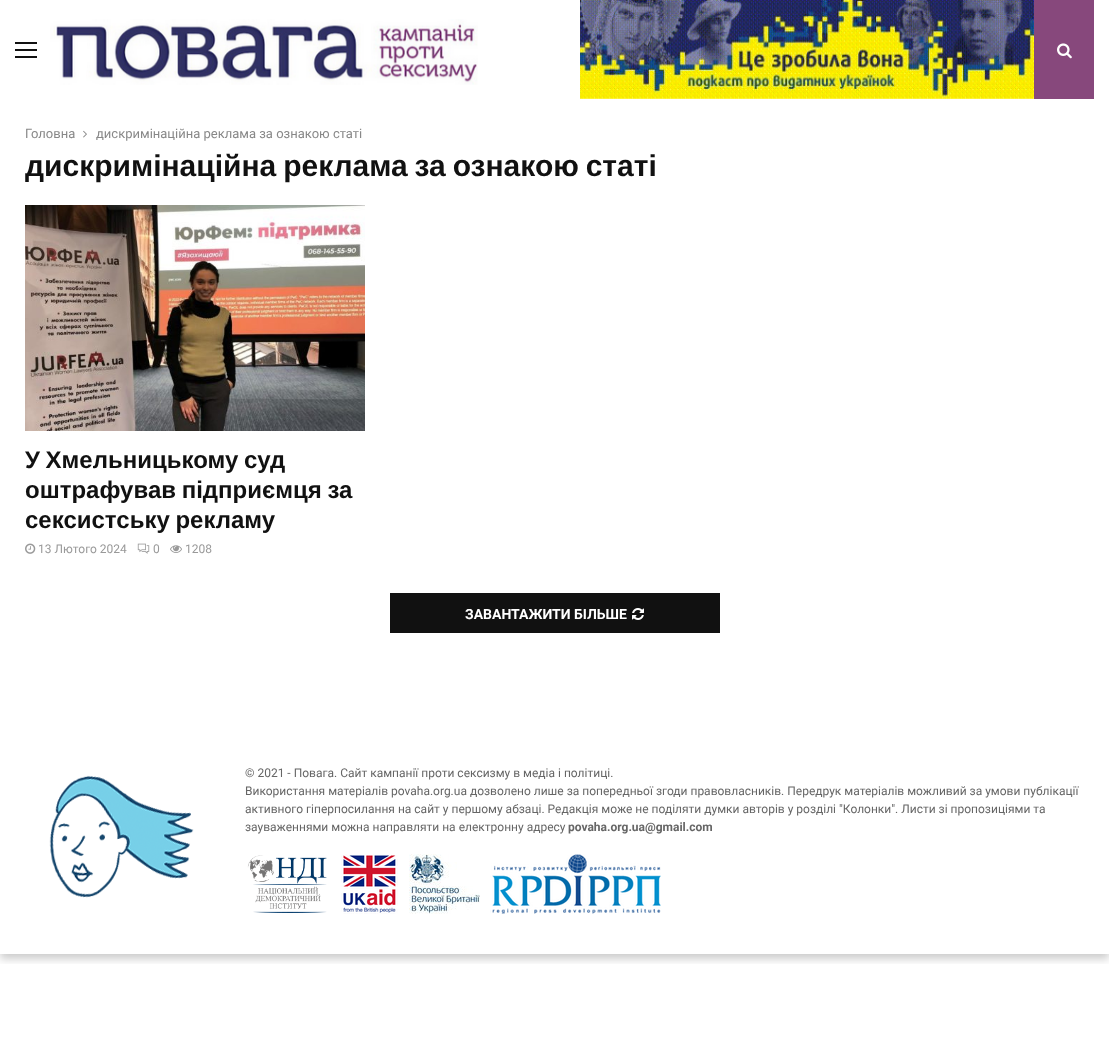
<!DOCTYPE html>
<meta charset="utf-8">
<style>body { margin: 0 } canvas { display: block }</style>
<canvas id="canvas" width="1109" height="1064"></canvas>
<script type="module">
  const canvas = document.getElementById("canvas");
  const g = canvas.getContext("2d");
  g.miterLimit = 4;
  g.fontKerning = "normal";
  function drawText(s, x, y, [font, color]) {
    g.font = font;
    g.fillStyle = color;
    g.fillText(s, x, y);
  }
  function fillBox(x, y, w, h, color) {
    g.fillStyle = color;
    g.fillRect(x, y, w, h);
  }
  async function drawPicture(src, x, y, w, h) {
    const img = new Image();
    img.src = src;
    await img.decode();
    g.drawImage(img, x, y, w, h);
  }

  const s1 = ["13px Roboto", "#888888"];
  const s2 = ["bold 30px Liberation Sans", "#111111"];
  const s3 = ["bold 24px Liberation Sans", "#111111"];
  const s4 = ["12px Roboto", "#999999"];
  const s5 = ["bold 14px Roboto", "#FFFFFF"];
  const s6 = ["12px Roboto", "#666666"];
  const s7 = ["bold 12px Roboto", "#666666"];

  fillBox(0, 0, 1109, 1064, "#FFFFFF");
  g.save();
  g.beginPath();
  g.rect(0, 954, 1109, 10);
  g.clip();
  g.fillStyle = "rgba(0, 0, 0, 0.2)";
  g.filter = "blur(4px)";
  g.beginPath();
  g.rect(0, 5, 1109, 954);
  g.fill();
  g.filter = "none";
  g.restore();
  fillBox(15, 42, 22, 2, "#111111");
  fillBox(15, 56, 22, 2, "#111111");
  fillBox(15, 49, 22, 2, "#111111");
  await drawPicture("pic1.png", 50, 19, 428, 66);
  await drawPicture("pic2.png", 580, 0, 454, 99);
  fillBox(1034, 0, 60, 99, "#87487C");
  await drawPicture("pic3.png", 1057, 43, 15, 16);
  drawText("Головна", 25, 138, s1);
  await drawPicture("pic4.png", 83, 130, 4, 8);
  drawText("дискримінаційна реклама за ознакою статі", 96, 138, s1);
  g.wordSpacing = "-1.5px";
  drawText("дискримінаційна реклама за ознакою статі", 25, 176, s2);
  await drawPicture("pic5.png", 25, 205, 340, 226);
  g.wordSpacing = "-1px";
  drawText("У Хмельницькому суд", 25, 468, s3);
  drawText("оштрафував підприємця за", 25, 498, s3);
  drawText("сексистську рекламу", 25, 528, s3);
  await drawPicture("pic6.png", 25, 543, 11, 11);
  g.wordSpacing = "0px";
  drawText("13 Лютого 2024", 38, 553, s4);
  await drawPicture("pic7.png", 137, 543, 13, 11);
  drawText("0", 153, 553, s4);
  await drawPicture("pic8.png", 170, 545, 12, 8);
  drawText("1208", 185, 553, s4);
  fillBox(390, 593, 330, 40, "#111111");
  drawText("ЗАВАНТАЖИТИ БІЛЬШЕ", 465, 619, s5);
  await drawPicture("pic9.png", 632, 608, 12, 12);
  await drawPicture("pic10.png", 49, 775, 145, 123);
  drawText("© 2021 - Повага. Сайт кампанії проти сексизму в медіа і політиці.", 245, 777, s6);
  drawText("Використання матеріалів povaha.org.ua дозволено лише за попередньої згоди правовласників. Передрук матеріалів можливий за умови публікації", 245, 795, s6);
  drawText("активного гіперпосилання на сайт у першому абзаці. Редакція може не поділяти думки авторів у розділі \"Колонки\". Листи зі пропозиціями та", 245, 813, s6);
  drawText("зауваженнями можна направляти на електронну адресу", 245, 831, s6);
  drawText("povaha.org.ua@gmail.com", 568, 831, s7);
  await drawPicture("pic11.png", 247, 855, 80, 58);
  await drawPicture("pic12.png", 341, 854, 57, 60);
  await drawPicture("pic13.png", 409, 854, 71, 60);
  await drawPicture("pic14.png", 490, 854, 171, 60);
</script>
